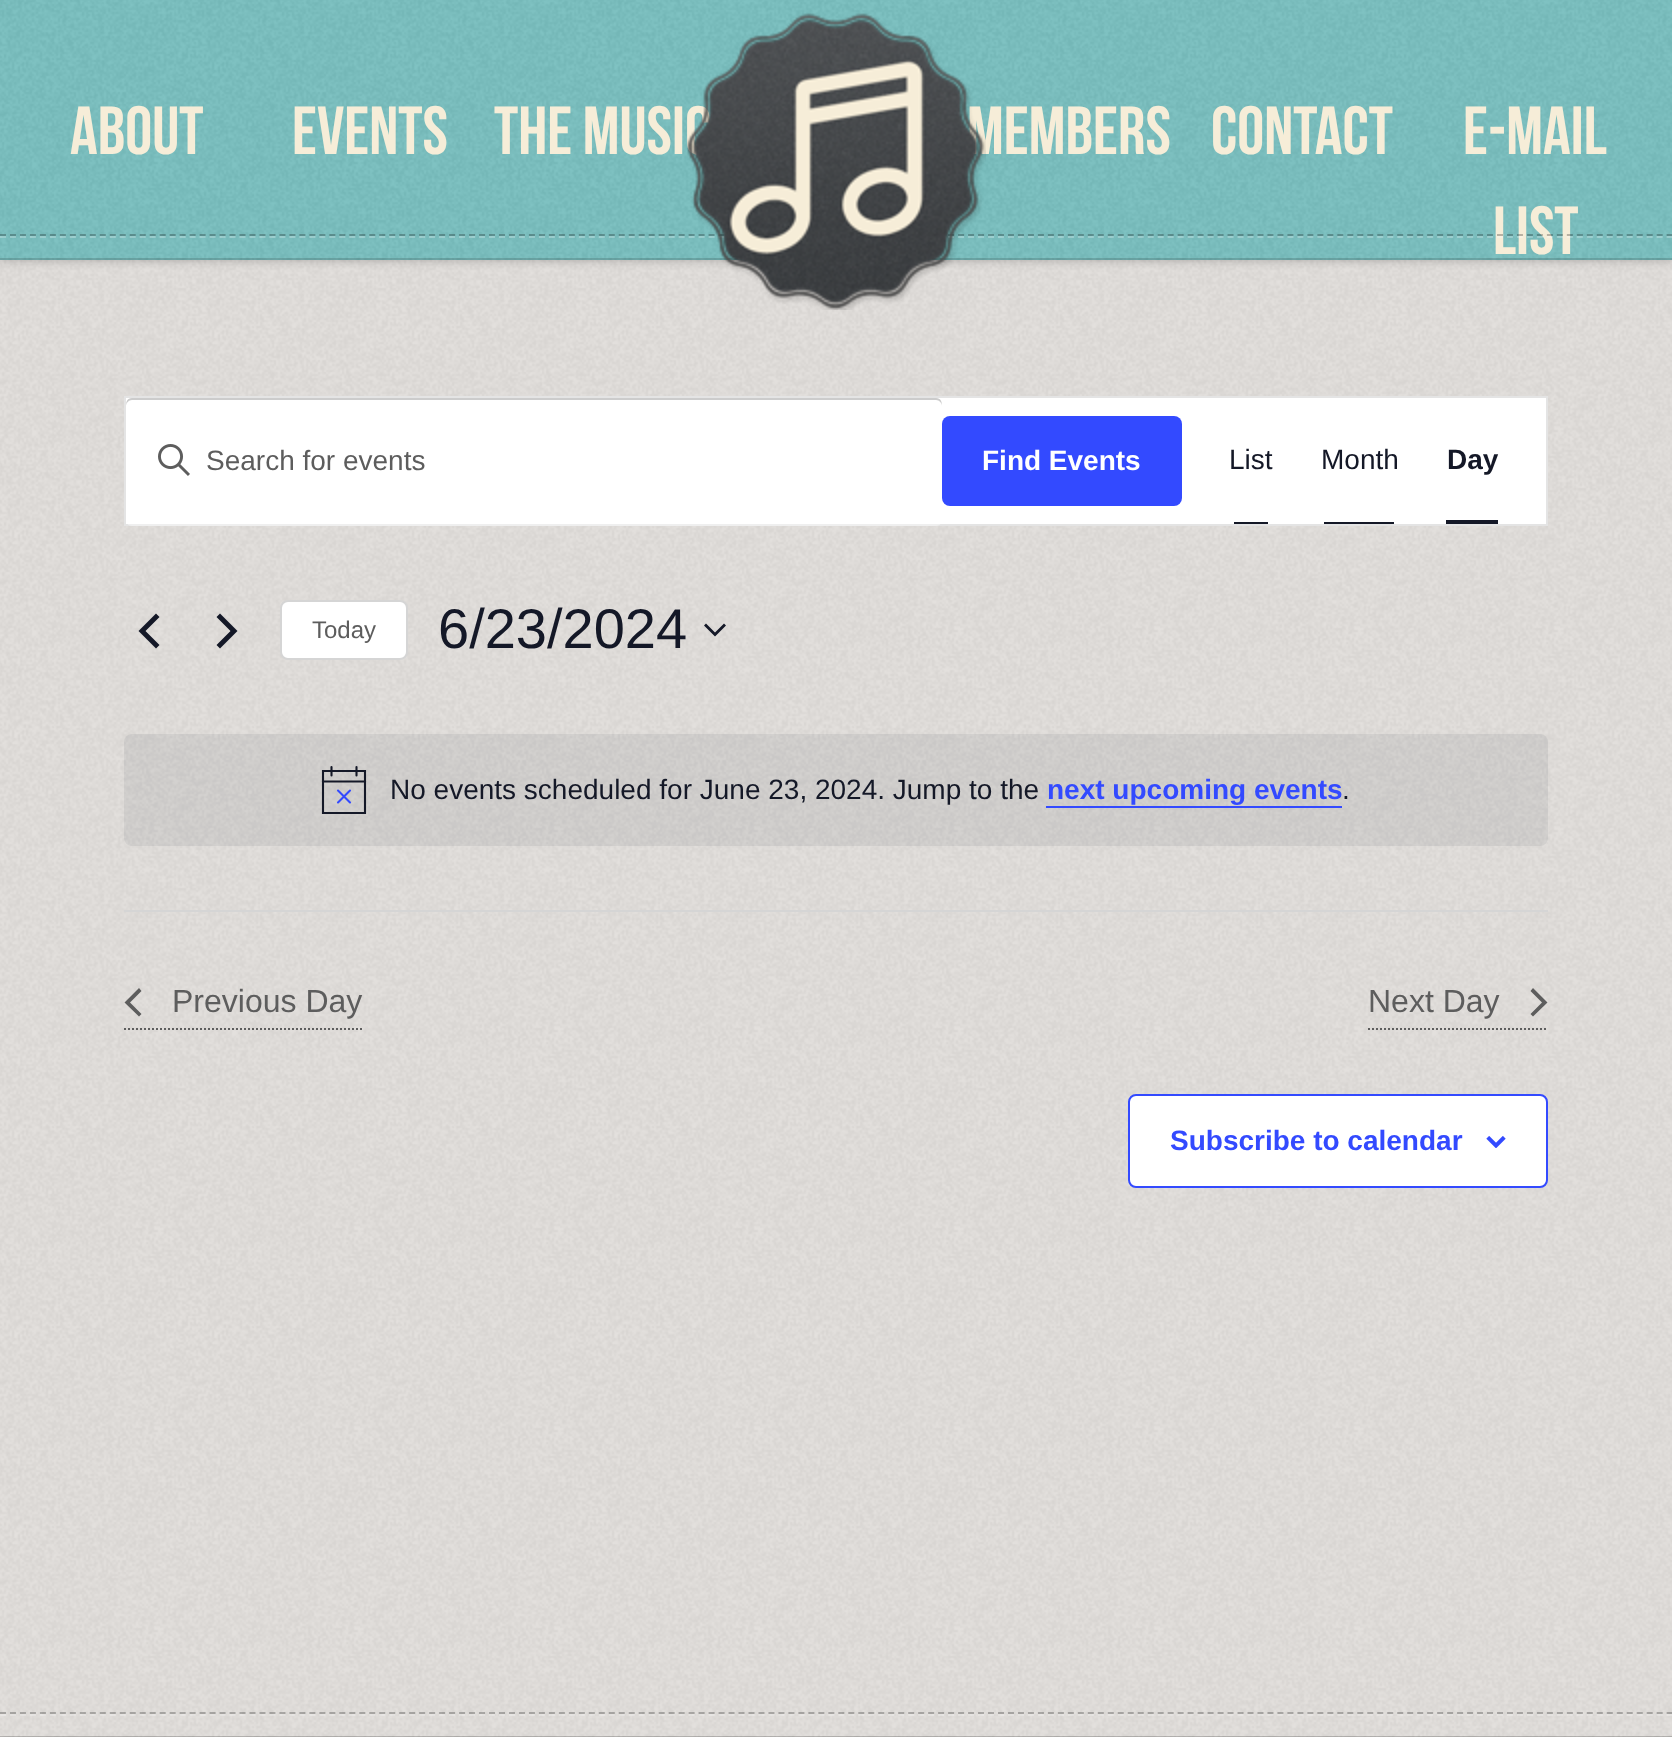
<!DOCTYPE html>
<meta charset="utf-8">
<style>body { margin: 0 } canvas { display: block }</style>
<canvas id="canvas" width="1672" height="1737"></canvas>
<script type="module">
  const canvas = document.getElementById("canvas");
  const g = canvas.getContext("2d");
  g.miterLimit = 4;
  g.fontKerning = "normal";
  function drawText(s, x, y, [font, color]) {
    g.font = font;
    g.fillStyle = color;
    g.fillText(s, x, y);
  }
  function fillBox(x, y, w, h, color) {
    g.fillStyle = color;
    g.fillRect(x, y, w, h);
  }
  function fillRounded(x, y, w, h, r, color) {
    g.fillStyle = color;
    g.beginPath();
    g.roundRect(x, y, w, h, r);
    g.fill();
  }
  async function drawPicture(src, x, y, w, h) {
    const img = new Image();
    img.src = src;
    await img.decode();
    g.drawImage(img, x, y, w, h);
  }

  const s1 = ["bold 68px Bebas Neue", "#F6EDD8"];
  const s2 = ["28px Liberation Sans", "#5D5D5D"];
  const s3 = ["bold 28px Liberation Sans", "#FFFFFF"];
  const s4 = ["28px Liberation Sans", "#141827"];
  const s5 = ["bold 28px Liberation Sans", "#141827"];
  const s6 = ["24px Liberation Sans", "#5D5D5D"];
  const s7 = ["56px Liberation Sans", "#141827"];
  const s8 = ["bold 28px Liberation Sans", "#334AFF"];
  const s9 = ["32px Liberation Sans", "#5D5D5D"];

  fillBox(0, 0, 1672, 1737, "#E3E0DD");
  await drawPicture("pic3.png", 0, 260, 1672, 1477);
  g.fillStyle = "rgba(0, 0, 0, 0.25)";
  g.filter = "blur(5px)";
  g.beginPath();
  g.rect(0, 0, 1672, 260);
  g.fill();
  g.filter = "none";
  fillBox(0, 0, 1672, 260, "#7AC0C0");
  await drawPicture("pic1.png", 0, 0, 1672, 260);
  fillBox(0, 258, 1672, 2, "rgba(0, 0, 0, 0.15)");
  drawText("THE MUSIC", 494, 154, s1);
  drawText("MEMBERS", 967, 154, s1);
  drawText("LIST", 1493, 254, s1);
  g.beginPath();
  g.moveTo(0, 235);
  g.lineTo(1672, 235);
  g.strokeStyle = "rgba(0, 0, 0, 0.25)";
  g.lineWidth = 2;
  g.setLineDash([6, 3.98]);
  g.stroke();
  g.beginPath();
  g.moveTo(0, 237);
  g.lineTo(1672, 237);
  g.strokeStyle = "rgba(255, 255, 255, 0.25)";
  g.stroke();
  await drawPicture("pic2.png", 687, 13, 299, 297);
  drawText("ABOUT", 70, 154, s1);
  drawText("EVENTS", 292, 154, s1);
  drawText("CONTACT", 1211, 154, s1);
  drawText("E-MAIL", 1463, 154, s1);
  fillBox(0, 1736, 1672, 1, "rgba(0, 0, 0, 0.2)");
  g.fillStyle = "#FFFFFF";
  g.beginPath();
  g.rect(125, 397, 1422, 128);
  g.fill();
  g.strokeStyle = "#E4E4E4";
  g.setLineDash([]);
  g.stroke();
  await drawPicture("pic4.png", 158, 444, 32, 32);
  g.fillStyle = "rgba(255, 255, 255, 0.4)";
  g.beginPath();
  g.moveTo(126, 518);
  g.bezierCurveTo(126, 522, 127, 526, 132, 526);
  g.lineTo(936, 526);
  g.bezierCurveTo(941, 526, 942, 522, 942, 518);
  g.bezierCurveTo(942, 521, 939, 524, 936, 524);
  g.lineTo(132, 524);
  g.bezierCurveTo(129, 524, 126, 521, 126, 518);
  g.closePath();
  g.fill();
  g.fillStyle = "#CCCCCC";
  g.beginPath();
  g.moveTo(132, 400);
  g.lineTo(936, 400);
  g.bezierCurveTo(939, 400, 942, 403, 942, 406);
  g.bezierCurveTo(942, 402, 941, 398, 936, 398);
  g.lineTo(132, 398);
  g.bezierCurveTo(127, 398, 126, 402, 126, 406);
  g.bezierCurveTo(126, 403, 129, 400, 132, 400);
  g.closePath();
  g.fill();
  drawText("Search for events", 206, 470, s2);
  fillRounded(942, 416, 240, 90, 8, "#334AFF");
  drawText("Find Events", 982, 470, s3);
  fillBox(1234, 522, 34, 2, "#141827");
  drawText("List", 1229, 469, s4);
  fillBox(1324, 522, 70, 2, "#141827");
  drawText("Month", 1321, 469, s4);
  drawText("Day", 1447, 469, s5);
  fillBox(1446, 520, 52, 4, "#141827");
  g.beginPath();
  g.moveTo(159.5, 645);
  g.lineTo(156, 648.5);
  g.lineTo(138.5, 631);
  g.lineTo(156, 613.5);
  g.lineTo(159.5, 617);
  g.lineTo(145.5, 631);
  g.closePath();
  g.fill();
  g.beginPath();
  g.moveTo(216.5, 617);
  g.lineTo(220, 613.5);
  g.lineTo(237.5, 631);
  g.lineTo(220, 648.5);
  g.lineTo(216.5, 645);
  g.lineTo(230.5, 631);
  g.closePath();
  g.fill();
  g.fillStyle = "#FFFFFF";
  g.beginPath();
  g.roundRect(281, 601, 126, 58, 7);
  g.fill();
  g.strokeStyle = "#D5D5D5";
  g.stroke();
  drawText("Today", 312, 638, s6);
  drawText("6/23/2024", 438, 648, s7);
  g.beginPath();
  g.moveTo(706, 623.5);
  g.lineTo(715, 632.5);
  g.lineTo(724, 623.5);
  g.lineTo(726, 625.5);
  g.lineTo(715, 636.5);
  g.lineTo(704, 625.5);
  g.closePath();
  g.fill("evenodd");
  fillRounded(124, 734, 1424, 112, 8, "rgba(20, 24, 39, 0.07)");
  g.beginPath();
  g.moveTo(323, 771);
  g.lineTo(365, 771);
  g.lineTo(365, 813);
  g.lineTo(323, 813);
  g.closePath();
  g.strokeStyle = "#141827";
  g.lineWidth = 2.1;
  g.stroke();
  g.beginPath();
  g.moveTo(338, 790.5);
  g.lineTo(350, 802.5);
  g.moveTo(350, 790.5);
  g.lineTo(338, 802.5);
  g.strokeStyle = "#334AFF";
  g.lineCap = "round";
  g.stroke();
  g.beginPath();
  g.moveTo(331.5, 767);
  g.lineTo(331.5, 775.5);
  g.moveTo(356.5, 767);
  g.lineTo(356.5, 775.5);
  g.strokeStyle = "#141827";
  g.stroke();
  g.beginPath();
  g.moveTo(323, 781.5);
  g.lineTo(365, 781.5);
  g.lineCap = "square";
  g.stroke();
  drawText("No events scheduled for June 23, 2024. Jump to the", 390, 799, s4);
  drawText("next upcoming events", 1047, 799, s8);
  fillBox(1046, 806, 296, 2, "#334AFF");
  drawText(".", 1342, 799, s4);
  fillBox(124, 910, 1424, 2, "#D5D5D5");
  g.beginPath();
  g.moveTo(124, 1029);
  g.lineTo(362, 1029);
  g.strokeStyle = "#5D5D5D";
  g.lineWidth = 2;
  g.lineCap = "butt";
  g.setLineDash([2, 2]);
  g.stroke();
  g.fillStyle = "#5D5D5D";
  g.beginPath();
  g.moveTo(141.5, 1014);
  g.lineTo(139, 1016.5);
  g.lineTo(124.5, 1002.5);
  g.lineTo(139, 988);
  g.lineTo(141.5, 991);
  g.lineTo(130, 1002.5);
  g.closePath();
  g.fill();
  drawText("Previous Day", 172, 1012, s9);
  g.beginPath();
  g.moveTo(1368, 1029);
  g.lineTo(1548, 1029);
  g.stroke();
  drawText("Next Day", 1368, 1012, s9);
  g.beginPath();
  g.moveTo(1530.5, 991);
  g.lineTo(1533, 988);
  g.lineTo(1547.5, 1002.5);
  g.lineTo(1533, 1016.5);
  g.lineTo(1530.5, 1014);
  g.lineTo(1542, 1002.5);
  g.closePath();
  g.fill();
  g.fillStyle = "#FFFFFF";
  g.beginPath();
  g.roundRect(1129, 1095, 418, 92, 7);
  g.fill();
  g.strokeStyle = "#334AFF";
  g.setLineDash([]);
  g.stroke();
  drawText("Subscribe to calendar", 1170, 1150, s8);
  await drawPicture("pic5.png", 1486, 1136, 20, 12);
  g.beginPath();
  g.moveTo(0, 1713);
  g.lineTo(1672, 1713);
  g.strokeStyle = "rgba(0, 0, 0, 0.25)";
  g.setLineDash([6, 3.98]);
  g.stroke();
  g.beginPath();
  g.moveTo(0, 1715);
  g.lineTo(1672, 1715);
  g.strokeStyle = "rgba(255, 255, 255, 0.25)";
  g.stroke();
</script>
